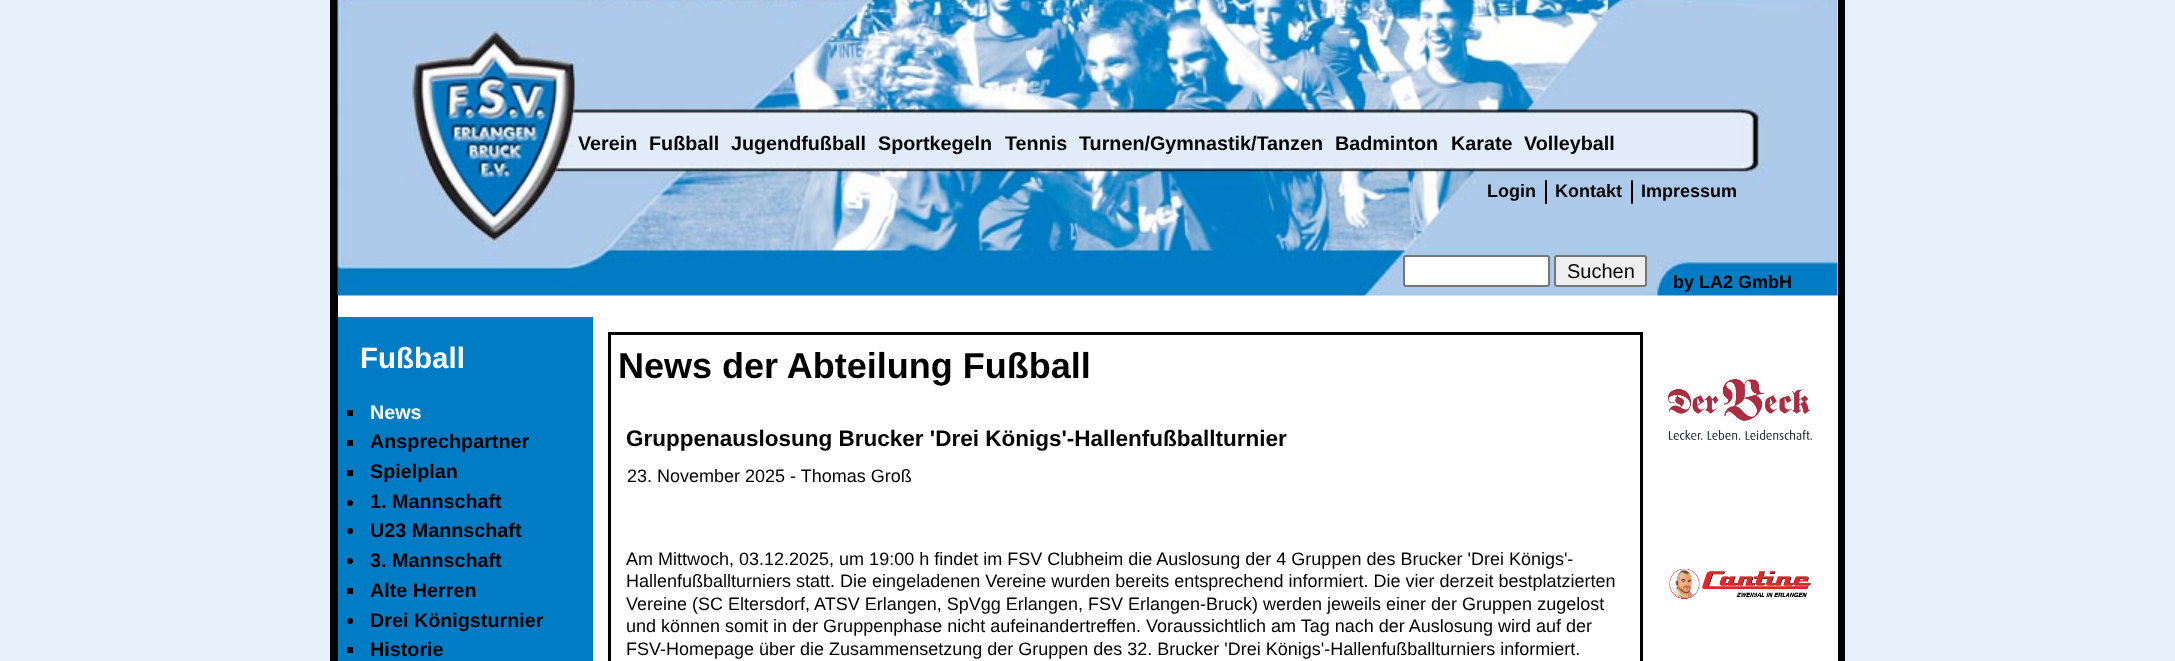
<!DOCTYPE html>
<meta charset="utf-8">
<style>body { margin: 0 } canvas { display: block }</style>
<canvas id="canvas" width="2175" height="661"></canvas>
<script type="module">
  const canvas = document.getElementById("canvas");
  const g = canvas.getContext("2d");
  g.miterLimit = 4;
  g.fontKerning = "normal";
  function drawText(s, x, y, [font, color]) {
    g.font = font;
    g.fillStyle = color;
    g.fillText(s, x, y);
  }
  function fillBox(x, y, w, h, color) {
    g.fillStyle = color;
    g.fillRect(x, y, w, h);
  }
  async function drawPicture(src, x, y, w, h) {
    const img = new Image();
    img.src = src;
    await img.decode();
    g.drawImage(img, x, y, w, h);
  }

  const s1 = ["bold 19.75px Liberation Sans", "#000000"];
  const s2 = ["bold 29.5px Liberation Sans", "#FFFFFF"];
  const s3 = ["bold 19.75px Liberation Sans", "#FFFFFF"];
  const s4 = ["bold 36px Liberation Sans", "#000000"];
  const s5 = ["bold 22.5px Liberation Sans", "#000000"];
  const s6 = ["18px Liberation Sans", "#000000"];
  const s7 = ["bold 18px Liberation Sans", "#000000"];
  const s8 = ["20px Liberation Sans", "#000000"];

  fillBox(0, 0, 2175, 661, "#E7F1FB");
  fillBox(338, 0, 1500, 661, "#FFFFFF");
  fillBox(1838, 0, 7, 661, "#000000");
  fillBox(330, 0, 8, 661, "#000000");
  await drawPicture("pic3.png", 337, 0, 1501, 296);
  drawText("Verein", 578, 150, s1);
  drawText("Fußball", 649, 150, s1);
  drawText("Jugendfußball", 731, 150, s1);
  drawText("Sportkegeln", 878, 150, s1);
  drawText("Tennis", 1005, 150, s1);
  drawText("Turnen/Gymnastik/Tanzen", 1079, 150, s1);
  drawText("Badminton", 1335, 150, s1);
  drawText("Karate", 1451, 150, s1);
  drawText("Volleyball", 1524, 150, s1);
  fillBox(338, 317, 255, 344, "#007CC4");
  drawText("Fußball", 360, 368, s2);
  fillBox(347, 410, 6, 6, "#000000");
  drawText("News", 370, 419, s3);
  fillBox(347, 440, 6, 6, "#000000");
  drawText("Ansprechpartner", 370, 448, s1);
  fillBox(347, 470, 6, 6, "#000000");
  drawText("Spielplan", 370, 478, s1);
  g.beginPath();
  g.arc(350, 503, 3, 0, Math.PI * 2);
  g.fill();
  drawText("1. Mannschaft", 370, 508, s1);
  g.beginPath();
  g.arc(350, 531, 3, 0, Math.PI * 2);
  g.fill();
  drawText("U23 Mannschaft", 370, 537, s1);
  g.beginPath();
  g.arc(350, 561, 3, 0, Math.PI * 2);
  g.fill();
  drawText("3. Mannschaft", 370, 567, s1);
  fillBox(347, 588, 6, 6, "#000000");
  drawText("Alte Herren", 370, 597, s1);
  g.beginPath();
  g.arc(350, 621, 3, 0, Math.PI * 2);
  g.fill();
  drawText("Drei Königsturnier", 370, 627, s1);
  fillBox(347, 647, 6, 6, "#000000");
  drawText("Historie", 370, 656, s1);
  g.strokeStyle = "#000000";
  g.lineWidth = 3;
  g.strokeRect(609.5, 333.5, 1032, 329);
  drawText("News der Abteilung Fußball", 618, 378, s4);
  drawText("Gruppenauslosung Brucker 'Drei Königs'-Hallenfußballturnier", 626, 446, s5);
  drawText("23. November 2025 - Thomas Groß", 627, 482, s6);
  drawText("Am Mittwoch, 03.12.2025, um 19:00 h findet im FSV Clubheim die Auslosung der 4 Gruppen des Brucker 'Drei Königs'-", 626, 565, s6);
  drawText("Hallenfußballturniers statt. Die eingeladenen Vereine wurden bereits entsprechend informiert. Die vier derzeit bestplatzierten", 626, 587, s6);
  drawText("Vereine (SC Eltersdorf, ATSV Erlangen, SpVgg Erlangen, FSV Erlangen-Bruck) werden jeweils einer der Gruppen zugelost", 626, 610, s6);
  drawText("und können somit in der Gruppenphase nicht aufeinandertreffen. Voraussichtlich am Tag nach der Auslosung wird auf der", 626, 632, s6);
  drawText("FSV-Homepage über die Zusammensetzung der Gruppen des 32. Brucker 'Drei Königs'-Hallenfußballturniers informiert.", 626, 655, s6);
  await drawPicture("pic1.png", 1667, 379, 145, 61);
  await drawPicture("pic2.png", 1669, 567, 142, 33);
  drawText("Login", 1487, 197, s7);
  fillBox(1631, 180, 2, 24, "#000000");
  fillBox(1545, 180, 2, 24, "#000000");
  drawText("Kontakt", 1555, 197, s7);
  drawText("Impressum", 1641, 197, s7);
  drawText("by LA2 GmbH", 1673, 288, s7);
  g.fillStyle = "#FFFFFF";
  g.beginPath();
  g.roundRect(1404, 256, 145, 30, 2);
  g.fill();
  g.strokeStyle = "#767676";
  g.lineWidth = 2;
  g.stroke();
  g.fillStyle = "#EFEFEF";
  g.beginPath();
  g.roundRect(1555, 256, 91, 30, 2);
  g.fill();
  g.stroke();
  drawText("Suchen", 1567, 278, s8);
</script>
